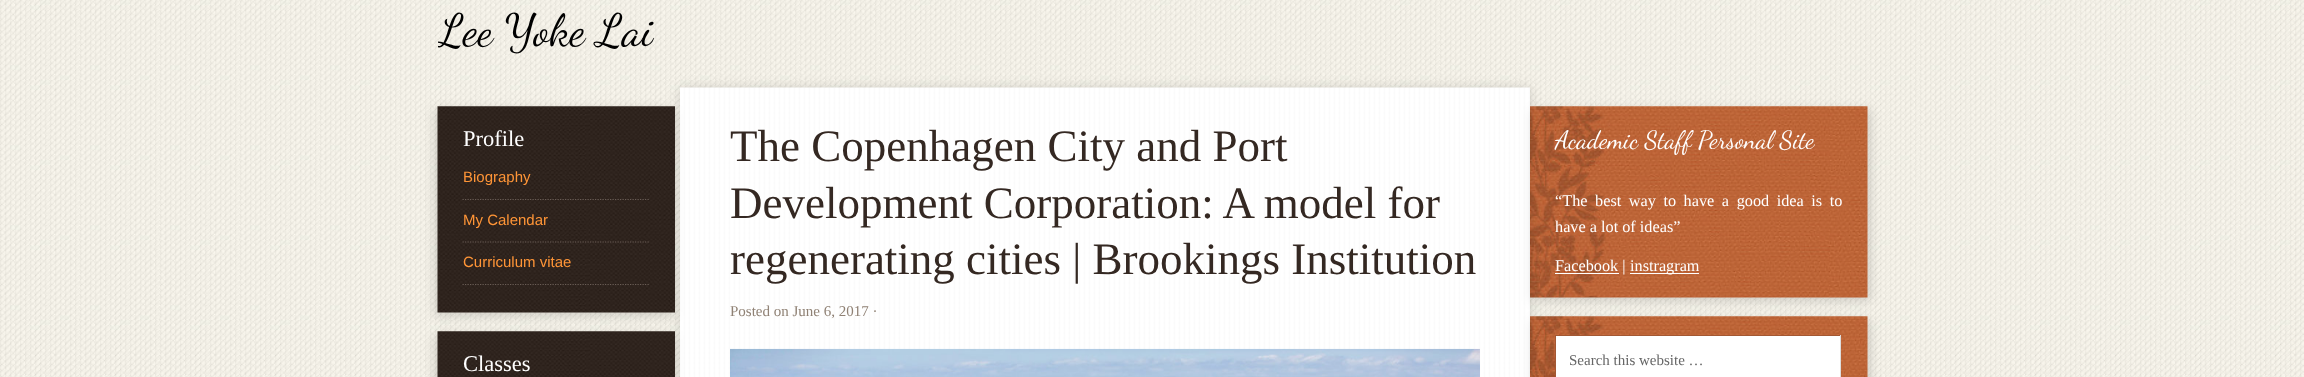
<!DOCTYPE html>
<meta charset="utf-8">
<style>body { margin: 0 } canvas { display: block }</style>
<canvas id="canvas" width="2304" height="377"></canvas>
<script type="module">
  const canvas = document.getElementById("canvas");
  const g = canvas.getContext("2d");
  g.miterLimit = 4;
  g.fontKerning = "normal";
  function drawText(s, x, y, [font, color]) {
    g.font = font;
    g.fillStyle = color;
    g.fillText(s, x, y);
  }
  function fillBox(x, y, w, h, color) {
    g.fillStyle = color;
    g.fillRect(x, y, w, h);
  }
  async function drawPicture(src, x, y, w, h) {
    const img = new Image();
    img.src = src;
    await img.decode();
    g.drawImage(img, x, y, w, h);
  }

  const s1 = ["45px Dancing Script", "#000000"];
  const s2 = ["22.5px Liberation Serif", "#FFFFFF"];
  const s3 = ["15px Liberation Sans", "#FF9537"];
  const s4 = ["45px Liberation Serif", "#342822"];
  const s5 = ["15px Liberation Serif", "#8F8174"];
  const s6 = ["25px Dancing Script", "#FFFFFF"];
  const s7 = ["16.25px Liberation Serif", "#FFFFFF"];
  const s8 = ["15px Liberation Serif", "#666666"];

  fillBox(0, 0, 2304, 377, "#FFFFFF");
  await drawPicture("pic1.png", 0, 0, 2304, 377);
  g.save();
  g.beginPath();
  g.rect(438, 0, 1430, 59);
  g.clip();
  drawText("Lee Yoke Lai", 438, 45, s1);
  g.restore();
  g.fillStyle = "rgba(0, 0, 0, 0.15)";
  g.filter = "blur(6px)";
  g.beginPath();
  g.rect(680, 88, 850, 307);
  g.fill();
  g.filter = "none";
  await drawPicture("pic4.png", 680, 87, 850, 290);
  g.filter = "blur(6px)";
  g.beginPath();
  g.rect(435, 110, 238, 206);
  g.fill();
  g.filter = "none";
  await drawPicture("pic2.png", 437, 106, 238, 207);
  drawText("Profile", 463, 146, s2);
  g.beginPath();
  g.moveTo(462.5, 199.5);
  g.lineTo(650, 199.5);
  g.strokeStyle = "#6A5D56";
  g.lineWidth = 1.2;
  g.setLineDash([1.25, 1.25]);
  g.stroke();
  drawText("Biography", 463, 182, s3);
  g.beginPath();
  g.moveTo(462.5, 242);
  g.lineTo(650, 242);
  g.stroke();
  drawText("My Calendar", 463, 225, s3);
  g.beginPath();
  g.moveTo(462.5, 284.5);
  g.lineTo(650, 284.5);
  g.stroke();
  drawText("Curriculum vitae", 463, 267, s3);
  g.fillStyle = "rgba(0, 0, 0, 0.15)";
  g.filter = "blur(6px)";
  g.beginPath();
  g.rect(435, 335, 238, 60);
  g.fill();
  g.filter = "none";
  await drawPicture("pic3.png", 437, 331, 238, 46);
  drawText("Classes", 463, 371, s2);
  drawText("The Copenhagen City and Port", 730, 161, s4);
  drawText("Development Corporation: A model for", 730, 218, s4);
  drawText("regenerating cities | Brookings Institution", 730, 274, s4);
  drawText("Posted on June 6, 2017 ·", 730, 316, s5);
  await drawPicture("pic5.png", 730, 348, 750, 29);
  g.fillStyle = "rgba(0, 0, 0, 0.15)";
  g.filter = "blur(6px)";
  g.beginPath();
  g.rect(1533, 110, 337, 191);
  g.fill();
  g.filter = "none";
  await drawPicture("pic6.png", 1530, 106, 338, 192);
  drawText("Academic Staff Personal Site", 1555, 148, s6);
  g.wordSpacing = "3.5px";
  drawText("“The best way to have a good idea is to", 1555, 206, s7);
  g.wordSpacing = "0px";
  drawText("have a lot of ideas”", 1555, 232, s7);
  fillBox(1555, 273, 64, 1, "#FFFFFF");
  drawText("Facebook |", 1555, 271, s7);
  fillBox(1630, 273, 69, 1, "#FFFFFF");
  drawText("instragram", 1630, 271, s7);
  g.fillStyle = "rgba(0, 0, 0, 0.15)";
  g.filter = "blur(6px)";
  g.beginPath();
  g.rect(1533, 320, 337, 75);
  g.fill();
  g.filter = "none";
  await drawPicture("pic7.png", 1530, 316, 338, 61);
  fillBox(1556, 336, 284, 41, "#FFFFFF");
  fillBox(1555, 335, 286, 1, "#A35833");
  fillBox(1840, 335, 1, 42, "#DDDDDD");
  fillBox(1555, 335, 1, 42, "#A35833");
  drawText("Search this website …", 1569, 365, s8);
</script>
